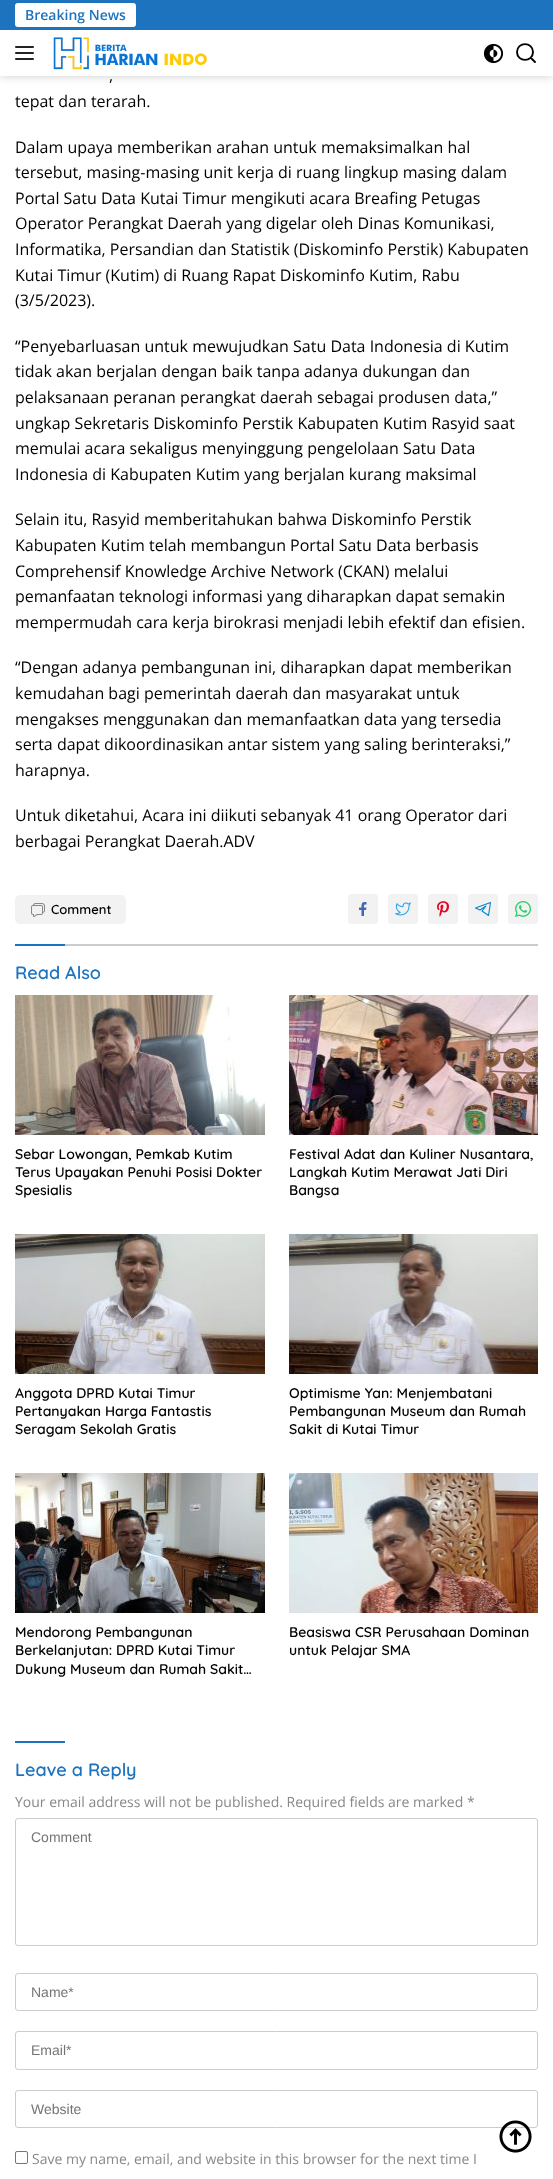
<!DOCTYPE html>
<meta charset="utf-8">
<style>body { margin: 0 } canvas { display: block }</style>
<canvas id="canvas" width="553" height="2179"></canvas>
<script type="module">
  const canvas = document.getElementById("canvas");
  const g = canvas.getContext("2d");
  g.miterLimit = 4;
  g.fontKerning = "normal";
  function drawText(s, x, y, [font, color]) {
    g.font = font;
    g.fillStyle = color;
    g.fillText(s, x, y);
  }
  function fillBox(x, y, w, h, color) {
    g.fillStyle = color;
    g.fillRect(x, y, w, h);
  }
  function fillRounded(x, y, w, h, r, color) {
    g.fillStyle = color;
    g.beginPath();
    g.roundRect(x, y, w, h, r);
    g.fill();
  }
  async function drawPicture(src, x, y, w, h) {
    const img = new Image();
    img.src = src;
    await img.decode();
    g.drawImage(img, x, y, w, h);
  }

  const s1 = ["600 14px Open Sans", "#1E73BE"];
  const s2 = ["16px Open Sans", "#000000"];
  const s3 = ["600 13px Quicksand", "#000000"];
  const s4 = ["600 18px Quicksand", "#1E73BE"];
  const s5 = ["600 14px Quicksand", "#000000"];
  const s6 = ["14px Open Sans", "#888888"];
  const s7 = ["14px Liberation Sans", "#757575"];

  fillBox(0, 0, 553, 2179, "#FFFFFF");
  g.fillStyle = "rgba(0, 0, 0, 0.2)";
  g.filter = "blur(5px)";
  g.beginPath();
  g.rect(0, 0, 553, 76);
  g.fill();
  g.filter = "none";
  fillBox(0, 30, 553, 46, "#FFFFFF");
  fillBox(0, 0, 553, 30, "#1E73BE");
  fillRounded(15, 3, 121, 24, 3, "#FFFFFF");
  drawText("Breaking News", 25, 20, s1);
  fillRounded(15, 46, 19, 2, 1, "#222222");
  fillRounded(15, 52, 19, 2, 1, "#222222");
  fillRounded(15, 58, 19, 2, 1, "#222222");
  await drawPicture("pic1.png", 53, 37, 155, 33);
  await drawPicture("pic2.png", 483, 43, 21, 21);
  g.beginPath();
  g.moveTo(535, 62);
  g.lineTo(531, 58);
  g.moveTo(533, 52);
  g.bezierCurveTo(533, 62.5, 517, 62.5, 517, 52);
  g.bezierCurveTo(517, 41.5, 533, 41.5, 533, 52);
  g.closePath();
  g.strokeStyle = "#000000";
  g.lineWidth = 1.9;
  g.lineCap = "round";
  g.stroke();
  drawText(",", 109, 81, s2);
  drawText("tepat dan terarah.", 15, 107, s2);
  drawText("Dalam upaya memberikan arahan untuk memaksimalkan hal", 15, 153, s2);
  drawText("tersebut, masing-masing unit kerja di ruang lingkup masing dalam", 15, 178, s2);
  drawText("Portal Satu Data Kutai Timur mengikuti acara Breafing Petugas", 15, 204, s2);
  drawText("Operator Perangkat Daerah yang digelar oleh Dinas Komunikasi,", 15, 229, s2);
  drawText("Informatika, Persandian dan Statistik (Diskominfo Perstik) Kabupaten", 15, 255, s2);
  drawText("Kutai Timur (Kutim) di Ruang Rapat Diskominfo Kutim, Rabu", 15, 281, s2);
  drawText("(3/5/2023).", 15, 306, s2);
  drawText("“Penyebarluasan untuk mewujudkan Satu Data Indonesia di Kutim", 15, 352, s2);
  drawText("tidak akan berjalan dengan baik tanpa adanya dukungan dan", 15, 377, s2);
  drawText("pelaksanaan peranan perangkat daerah sebagai produsen data,”", 15, 403, s2);
  drawText("ungkap Sekretaris Diskominfo Perstik Kabupaten Kutim Rasyid saat", 15, 429, s2);
  drawText("memulai acara sekaligus menyinggung pengelolaan Satu Data", 15, 454, s2);
  drawText("Indonesia di Kabupaten Kutim yang berjalan kurang maksimal", 15, 480, s2);
  drawText("Selain itu, Rasyid memberitahukan bahwa Diskominfo Perstik", 15, 525, s2);
  drawText("Kabupaten Kutim telah membangun Portal Satu Data berbasis", 15, 551, s2);
  drawText("Comprehensif Knowledge Archive Network (CKAN) melalui", 15, 577, s2);
  drawText("pemanfaatan teknologi informasi yang diharapkan dapat semakin", 15, 602, s2);
  drawText("mempermudah cara kerja birokrasi menjadi lebih efektif dan efisien.", 15, 628, s2);
  drawText("“Dengan adanya pembangunan ini, diharapkan dapat memberikan", 15, 673, s2);
  drawText("kemudahan bagi pemerintah daerah dan masyarakat untuk", 15, 699, s2);
  drawText("mengakses menggunakan dan memanfaatkan data yang tersedia", 15, 725, s2);
  drawText("serta dapat dikoordinasikan antar sistem yang saling berinteraksi,”", 15, 750, s2);
  drawText("harapnya.", 15, 776, s2);
  drawText("Untuk diketahui, Acara ini diikuti sebanyak 41 orang Operator dari", 15, 821, s2);
  drawText("berbagai Perangkat Daerah.ADV", 15, 847, s2);
  fillRounded(15, 895, 111, 29, 5, "#F2F2F2");
  await drawPicture("pic3.png", 31, 903, 14, 14);
  drawText("Comment", 51, 914, s3);
  fillRounded(348, 894, 30, 30, 3, "#F2F2F2");
  await drawPicture("pic4.png", 359, 902, 8, 14);
  fillRounded(388, 894, 30, 30, 3, "#F2F2F2");
  await drawPicture("pic5.png", 395, 902, 16, 14);
  fillRounded(428, 894, 30, 30, 3, "#F2F2F2");
  await drawPicture("pic6.png", 437, 901, 12, 16);
  fillRounded(468, 894, 30, 30, 3, "#F2F2F2");
  g.beginPath();
  g.moveTo(490.5, 902.5);
  g.lineTo(475.5, 908);
  g.lineTo(480, 910);
  g.lineTo(486, 906);
  g.lineTo(482, 911);
  g.lineTo(488.5, 915.5);
  g.closePath();
  g.strokeStyle = "#0088CC";
  g.lineWidth = 1.1;
  g.lineCap = "butt";
  g.lineJoin = "round";
  g.stroke();
  fillRounded(508, 894, 30, 30, 3, "#F2F2F2");
  await drawPicture("pic7.png", 515, 901, 16, 16);
  fillBox(65, 944, 473, 2, "#CCCCCC");
  fillBox(15, 944, 50, 2, "#1E73BE");
  drawText("Read Also", 15, 979, s4);
  await drawPicture("pic8.png", 15, 995, 250, 140);
  drawText("Sebar Lowongan, Pemkab Kutim", 15, 1159, s5);
  drawText("Terus Upayakan Penuhi Posisi Dokter", 15, 1177, s5);
  drawText("Spesialis", 15, 1195, s5);
  await drawPicture("pic9.png", 289, 995, 249, 140);
  drawText("Festival Adat dan Kuliner Nusantara,", 289, 1159, s5);
  drawText("Langkah Kutim Merawat Jati Diri", 289, 1177, s5);
  drawText("Bangsa", 289, 1195, s5);
  await drawPicture("pic10.png", 15, 1234, 250, 140);
  drawText("Anggota DPRD Kutai Timur", 15, 1398, s5);
  drawText("Pertanyakan Harga Fantastis", 15, 1416, s5);
  drawText("Seragam Sekolah Gratis", 15, 1434, s5);
  await drawPicture("pic11.png", 289, 1234, 249, 140);
  drawText("Optimisme Yan: Menjembatani", 289, 1398, s5);
  drawText("Pembangunan Museum dan Rumah", 289, 1416, s5);
  drawText("Sakit di Kutai Timur", 289, 1434, s5);
  await drawPicture("pic12.png", 15, 1473, 250, 140);
  drawText("Mendorong Pembangunan", 15, 1637, s5);
  drawText("Berkelanjutan: DPRD Kutai Timur", 15, 1655, s5);
  drawText("Dukung Museum dan Rumah Sakit…", 15, 1674, s5);
  await drawPicture("pic13.png", 289, 1473, 249, 140);
  drawText("Beasiswa CSR Perusahaan Dominan", 289, 1637, s5);
  drawText("untuk Pelajar SMA", 289, 1655, s5);
  fillBox(15, 1741, 50, 2, "#1E73BE");
  drawText("Leave a Reply", 15, 1776, s4);
  drawText("Your email address will not be published. Required fields are marked *", 15, 1807, s6);
  g.beginPath();
  g.roundRect(15.5, 1818.5, 522, 127, 2.5);
  g.strokeStyle = "#CCCCCC";
  g.lineWidth = 1;
  g.lineJoin = "miter";
  g.stroke();
  drawText("Comment", 31, 1842, s7);
  g.beginPath();
  g.roundRect(15.5, 1973.5, 522, 37, 2.5);
  g.stroke();
  drawText("Name*", 31, 1997, s7);
  g.beginPath();
  g.roundRect(15.5, 2031.5, 522, 38, 2.5);
  g.stroke();
  drawText("Email*", 31, 2055, s7);
  g.beginPath();
  g.roundRect(15.5, 2090.5, 522, 37, 2.5);
  g.stroke();
  drawText("Website", 31, 2114, s7);
  g.beginPath();
  g.roundRect(15.5, 2151.5, 12, 12, 1.5);
  g.strokeStyle = "#767676";
  g.stroke();
  drawText("Save my name, email, and website in this browser for the next time I", 32, 2164, s6);
  await drawPicture("pic14.png", 499, 2120, 33, 33);
</script>
